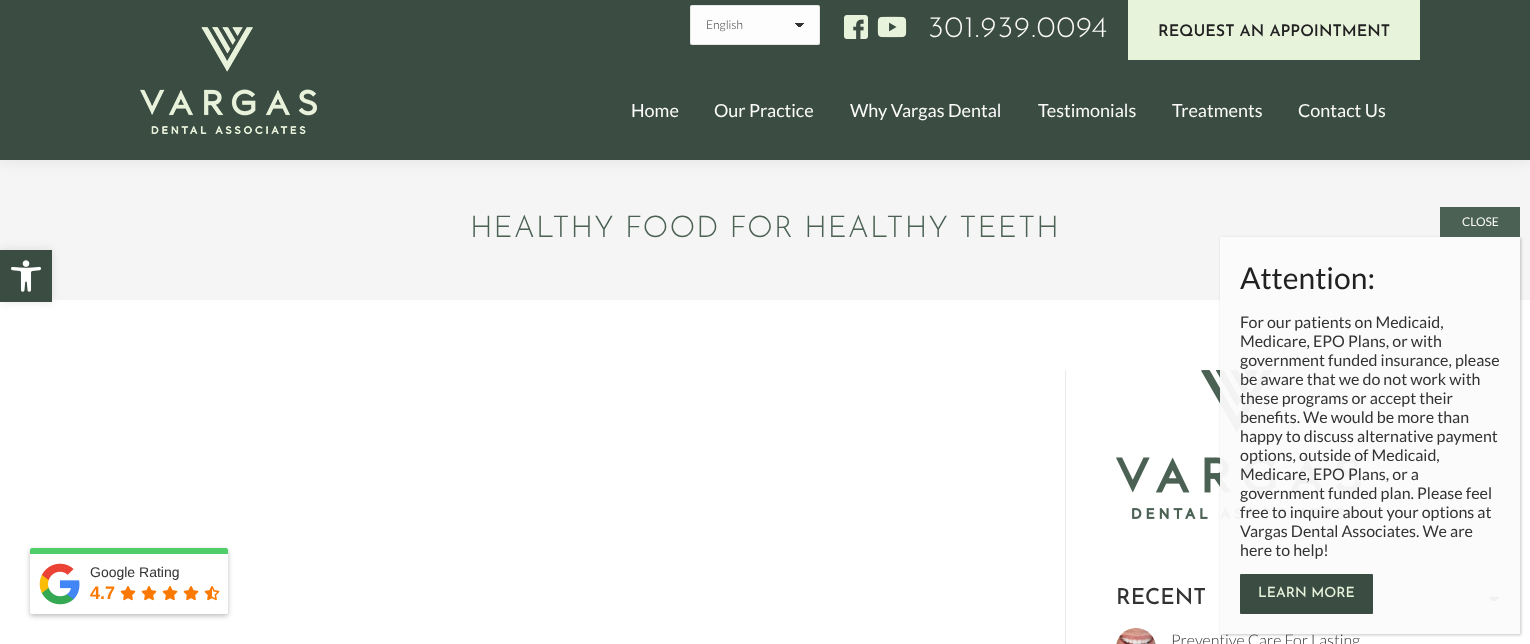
<svg xmlns="http://www.w3.org/2000/svg" width="1530" height="644">
<defs>
<linearGradient id="g1" gradientUnits="userSpaceOnUse" x1="799" y1="23" x2="804" y2="28"><stop offset="0.5" stop-color="#333"/><stop offset="0.5" stop-color="#fdfdfd"/></linearGradient>
<linearGradient id="g2" gradientUnits="userSpaceOnUse" x1="794" y1="28" x2="799" y2="23"><stop offset="0.5" stop-color="#fdfdfd"/><stop offset="0.5" stop-color="#333"/></linearGradient>
<linearGradient id="g3" gradientUnits="userSpaceOnUse" x1="1494" y1="597" x2="1499" y2="602"><stop offset="0.5" stop-color="#333"/><stop offset="0.5" stop-color="#fdfdfd"/></linearGradient>
<linearGradient id="g4" gradientUnits="userSpaceOnUse" x1="1489" y1="602" x2="1494" y2="597"><stop offset="0.5" stop-color="#fdfdfd"/><stop offset="0.5" stop-color="#333"/></linearGradient>
<clipPath id="clip1"><path d="M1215 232h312v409h-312zm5 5h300v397h-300z" clip-rule="evenodd"/></clipPath>
</defs>
<rect width="100%" height="100%" fill="#fff"/>
<rect y="160" width="1530" height="140" fill="#f5f5f5"/>
<rect x="-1" y="-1" width="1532" height="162" fill="#00000012" filter="blur(7.5px)"/>
<rect width="1530" height="160" fill="#3b4c42"/>
<rect x="690" y="5" width="130" height="40" rx="2" fill="#fdfdfd"/>
<rect x="799" y="23" width="5" height="4" fill="url(#g1)"/>
<rect x="794" y="23" width="5" height="4" fill="url(#g2)"/>
<rect x="690.5" y="5.5" width="129" height="39" rx="1.5" fill="none" stroke="#3333331c"/>
<text x="706" y="29" style="font-family:Lato;font-size:12px;font-weight:300;fill:#333">English</text>
<image x="844" y="15" width="24" height="24" href="media/1.png"/>
<image x="877" y="16" width="30" height="22" href="media/2.png"/>
<text x="928" y="37" style="font-family:Josefin Sans;font-size:30px;font-weight:300;letter-spacing:1px;fill:#fbfbfb">301.939.0094</text>
<rect x="1128" width="292" height="60" fill="#e8f3dc"/>
<text x="1158" y="36" style="font-family:Josefin Sans;font-size:16px;font-weight:600;fill:#222">REQUEST AN APPOINTMENT</text>
<image x="140" y="27" width="177" height="107" href="media/3.png"/>
<text x="631" y="117" style="font-family:Lato;font-size:18px;fill:#fbfbfb">Home</text>
<text x="714" y="117" style="font-family:Lato;font-size:18px;fill:#fbfbfb">Our Practice</text>
<text x="850" y="117" style="font-family:Lato;font-size:18px;fill:#fbfbfb">Why Vargas Dental</text>
<text x="1038" y="117" style="font-family:Lato;font-size:18px;fill:#fbfbfb">Testimonials</text>
<text x="1172" y="117" style="font-family:Lato;font-size:18px;fill:#fbfbfb">Treatments</text>
<text x="1298" y="117" style="font-family:Lato;font-size:18px;fill:#fbfbfb">Contact Us</text>
<text x="470" y="237" style="font-family:Josefin Sans;font-size:30px;font-weight:300;letter-spacing:1px;fill:#4b6154">HEALTHY FOOD FOR HEALTHY TEETH</text>
<rect x="30" y="550" width="198" height="66" rx="2" fill="#00000042" filter="blur(2.5px)"/>
<path d="M32 548h194c1 0 2 1 2 2v4h-198v-4c0-1 1-2 2-2z" fill="#4fce6a"/>
<path d="M30 554h198v58c0 1-1 2-2 2h-194c-1 0-2-1-2-2z" fill="#fff"/>
<image x="39" y="563" width="41" height="42" href="media/4.png"/>
<text x="90" y="577" style="font-family:Liberation Sans;font-size:14px;fill:#333">Google Rating</text>
<text x="90" y="599" style="font-family:Liberation Sans;font-size:18px;font-weight:bold;fill:#fb7900">4.7</text>
<image x="120" y="586" width="16" height="15" href="media/5.png"/>
<image x="141" y="586" width="16" height="15" href="media/5.png"/>
<image x="162" y="586" width="16" height="15" href="media/5.png"/>
<image x="183" y="586" width="16" height="15" href="media/5.png"/>
<image x="204" y="586" width="16" height="15" href="media/6.png"/>
<rect x="1065" y="370" width="1" height="274" fill="#ebebeb"/>
<image x="1116" y="370" width="245" height="149" href="media/7.png"/>
<text x="1116" y="604" style="font-family:Josefin Sans;font-size:22px;font-weight:500;fill:#333">RECENT</text>
<image x="1116" y="628" width="40" height="16" href="media/8.png"/>
<text x="1171" y="646" style="font-family:Lato;font-size:16px;font-weight:300;fill:#333">Preventive Care For Lasting</text>
<rect y="250" width="52" height="52" fill="#0000001a" filter="blur(5px)"/>
<rect y="250" width="52" height="52" fill="#3b4c42"/>
<image x="11" y="260" width="30" height="32" href="media/9.png"/>
<rect x="1494" y="597" width="5" height="4" fill="url(#g3)"/>
<rect x="1489" y="597" width="5" height="4" fill="url(#g4)"/>
<rect x="1358.5" y="579.5" width="156" height="39" rx="1.5" fill="none" stroke="#e7e7e7"/>
<g clip-path="url(#clip1)">
<rect x="1221" y="238" width="300" height="397" fill="#0202023b" filter="blur(1.5px)"/>
</g>
<rect x="1220" y="237" width="300" height="397" fill="#fbfbfbf2"/>
<rect x="1440" y="207" width="80" height="30" fill="#4b6154"/>
<text x="1462" y="226" style="font-family:Lato;font-size:12px;fill:#fbfbfb">CLOSE</text>
<text x="1240" y="289" style="font-family:Lato;font-size:30px;fill:#222">Attention:</text>
<text x="1240" y="328" style="font-family:Lato;font-size:16px;fill:#333">For our patients on Medicaid,</text>
<text x="1240" y="347" style="font-family:Lato;font-size:16px;fill:#333">Medicare, EPO Plans, or with</text>
<text x="1240" y="366" style="font-family:Lato;font-size:16px;fill:#333">government funded insurance, please</text>
<text x="1240" y="385" style="font-family:Lato;font-size:16px;fill:#333">be aware that we do not work with</text>
<text x="1240" y="404" style="font-family:Lato;font-size:16px;fill:#333">these programs or accept their</text>
<text x="1240" y="423" style="font-family:Lato;font-size:16px;fill:#333">benefits. We would be more than</text>
<text x="1240" y="442" style="font-family:Lato;font-size:16px;fill:#333">happy to discuss alternative payment</text>
<text x="1240" y="461" style="font-family:Lato;font-size:16px;fill:#333">options, outside of Medicaid,</text>
<text x="1240" y="480" style="font-family:Lato;font-size:16px;fill:#333">Medicare, EPO Plans, or a</text>
<text x="1240" y="499" style="font-family:Lato;font-size:16px;fill:#333">government funded plan. Please feel</text>
<text x="1240" y="518" style="font-family:Lato;font-size:16px;fill:#333">free to inquire about your options at</text>
<text x="1240" y="537" style="font-family:Lato;font-size:16px;fill:#333">Vargas Dental Associates. We are</text>
<text x="1240" y="556" style="font-family:Lato;font-size:16px;fill:#333">here to help!</text>
<rect x="1240" y="574" width="133" height="40" rx="1" fill="#3b4c42"/>
<text x="1258" y="597" style="font-family:Josefin Sans;font-size:14px;font-weight:500;fill:#e8f3dc">LEARN MORE</text>
</svg>
